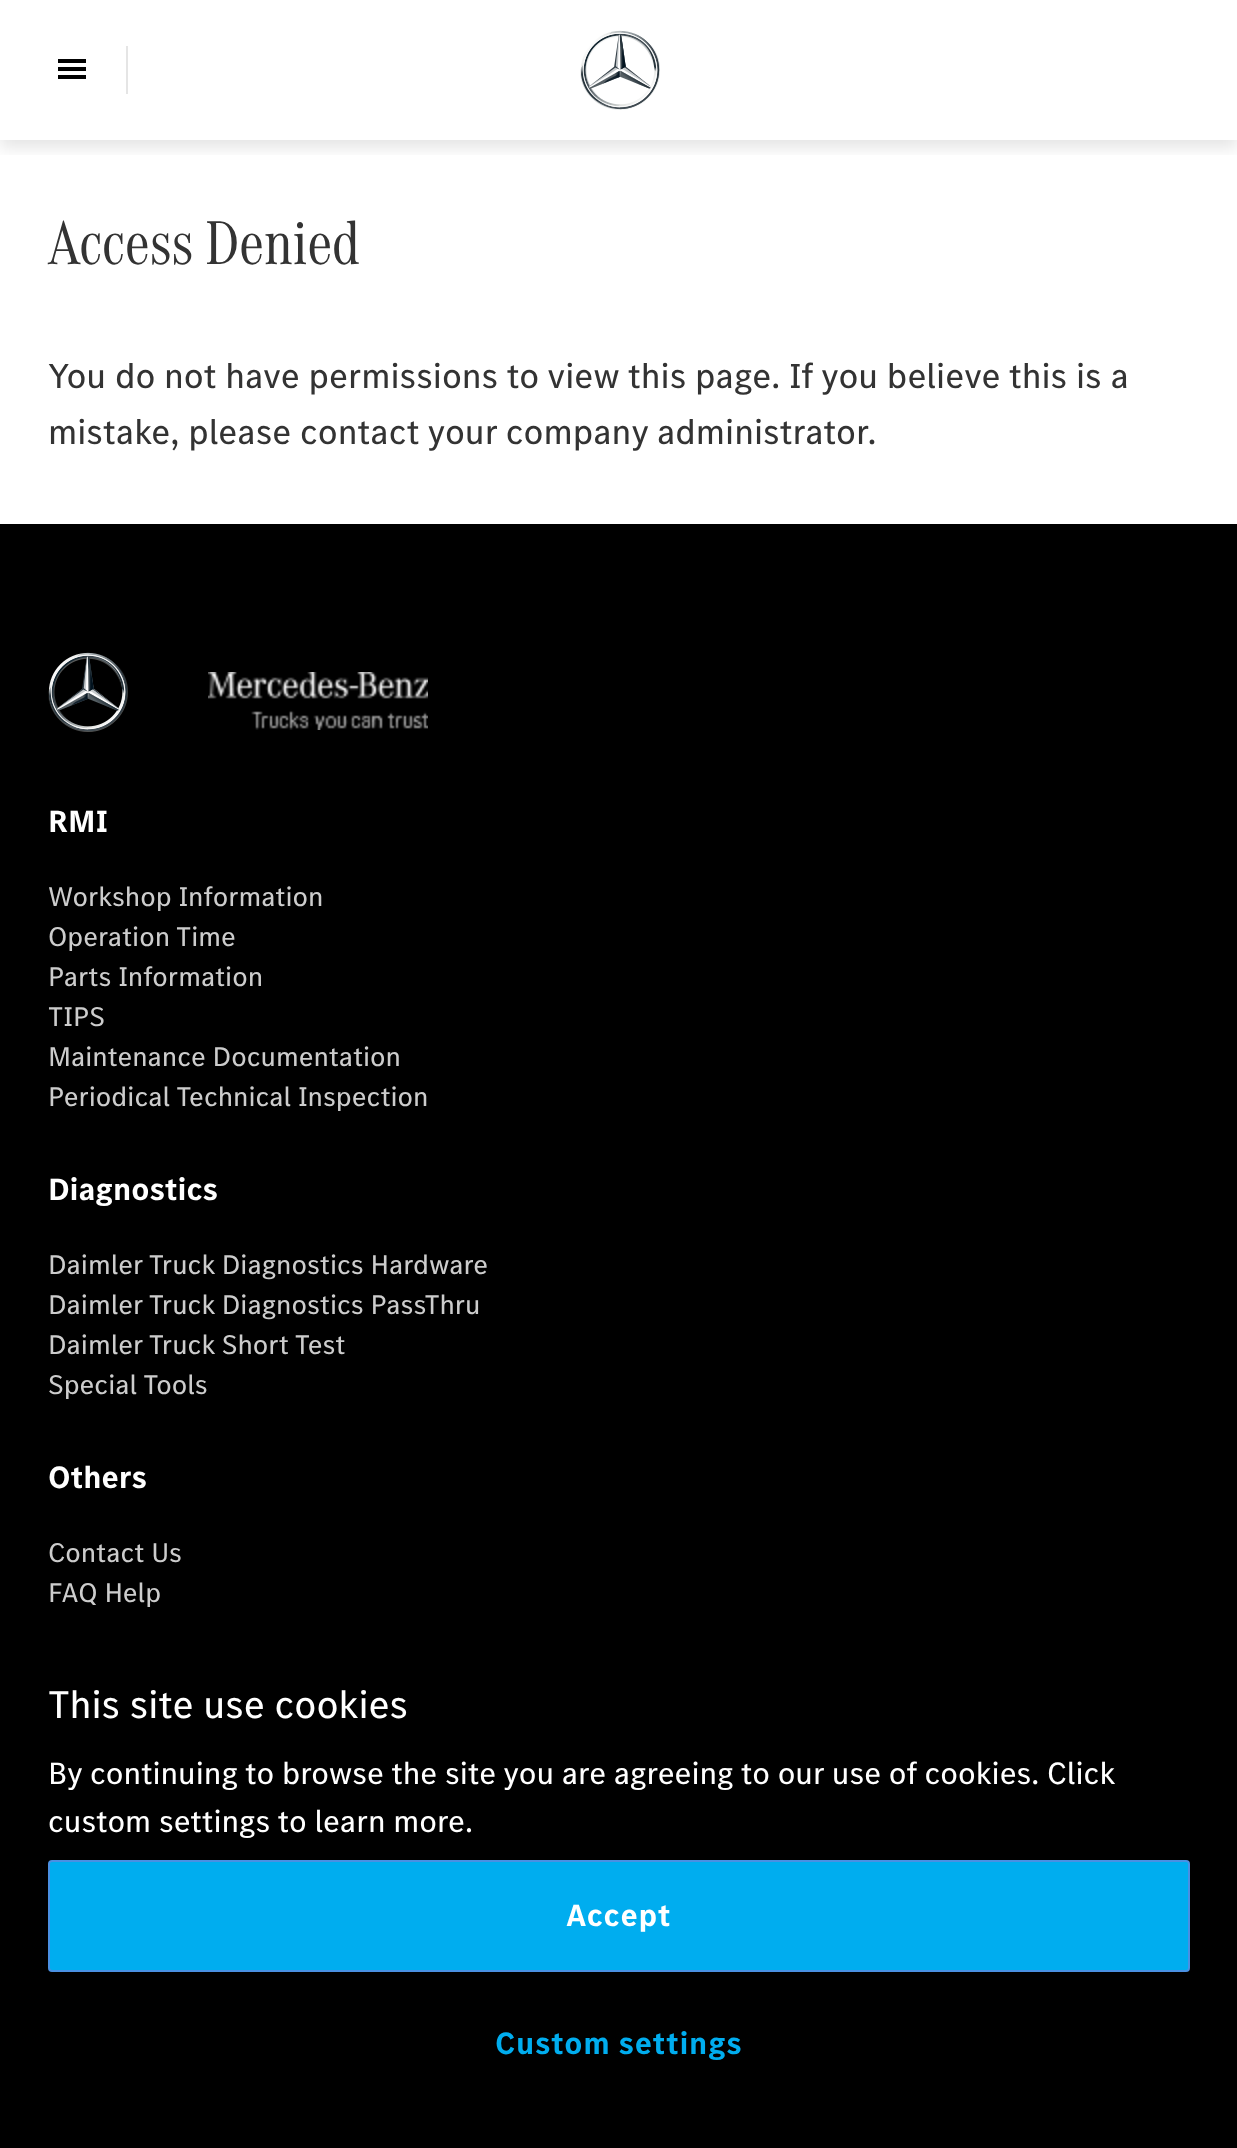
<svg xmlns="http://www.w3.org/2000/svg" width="1237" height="2148">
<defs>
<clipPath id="clip1"><rect x="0" y="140" width="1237" height="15"/></clipPath>
</defs>
<rect width="100%" height="100%" fill="#fff"/>
<g clip-path="url(#clip1)">
<rect y="8" width="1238" height="140" fill="#0000001a" filter="blur(8px)"/>
</g>
<image x="58" y="59" width="28" height="20" href="media/1.png"/>
<rect x="126" y="46" width="2" height="48" fill="#e5e5e5"/>
<image x="580" y="30" width="80" height="80" href="media/2.png"/>
<text x="48" y="264" style="font-family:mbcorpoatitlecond;font-size:64px;fill:#333">Access Denied</text>
<text x="48" y="388" style="font-family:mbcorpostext;font-size:36px;fill:#333">You do not have permissions to view this page. If you believe this is a</text>
<text x="48" y="444" style="font-family:mbcorpostext;font-size:36px;fill:#333">mistake, please contact your company administrator.</text>
<rect y="524" width="1237" height="1624" fill="#000"/>
<image x="48" y="652" width="80" height="80" href="media/3.png"/>
<image x="208" y="672" width="220" height="58" href="media/4.png"/>
<text x="48" y="832" style="font-family:mbcorpostext;font-size:32px;font-weight:bold;fill:#fff">RMI</text>
<text x="48" y="906" style="font-family:mbcorpostext;font-size:28px;fill:#ccc">Workshop Information</text>
<text x="48" y="946" style="font-family:mbcorpostext;font-size:28px;fill:#ccc">Operation Time</text>
<text x="48" y="986" style="font-family:mbcorpostext;font-size:28px;fill:#ccc">Parts Information</text>
<text x="48" y="1026" style="font-family:mbcorpostext;font-size:28px;fill:#ccc">TIPS</text>
<text x="48" y="1066" style="font-family:mbcorpostext;font-size:28px;fill:#ccc">Maintenance Documentation</text>
<text x="48" y="1106" style="font-family:mbcorpostext;font-size:28px;fill:#ccc">Periodical Technical Inspection</text>
<text x="48" y="1200" style="font-family:mbcorpostext;font-size:32px;font-weight:bold;fill:#fff">Diagnostics</text>
<text x="48" y="1274" style="font-family:mbcorpostext;font-size:28px;fill:#ccc">Daimler Truck Diagnostics Hardware</text>
<text x="48" y="1314" style="font-family:mbcorpostext;font-size:28px;fill:#ccc">Daimler Truck Diagnostics PassThru</text>
<text x="48" y="1354" style="font-family:mbcorpostext;font-size:28px;fill:#ccc">Daimler Truck Short Test</text>
<text x="48" y="1394" style="font-family:mbcorpostext;font-size:28px;fill:#ccc">Special Tools</text>
<text x="48" y="1488" style="font-family:mbcorpostext;font-size:32px;font-weight:bold;fill:#fff">Others</text>
<text x="48" y="1562" style="font-family:mbcorpostext;font-size:28px;fill:#ccc">Contact Us</text>
<text x="48" y="1602" style="font-family:mbcorpostext;font-size:28px;fill:#ccc">FAQ Help</text>
<text x="48" y="1718" style="font-family:mbcorpostext;font-size:40px;fill:#fff">This site use cookies</text>
<text x="48" y="1784" style="font-family:mbcorpostext;font-size:32px;fill:#fff">By continuing to browse the site you are agreeing to our use of cookies. Click</text>
<text x="48" y="1832" style="font-family:mbcorpostext;font-size:32px;fill:#fff">custom settings to learn more.</text>
<rect x="49" y="1861" width="1140" height="110" rx="3" fill="#00adef" stroke="#4a90e2" stroke-width="2"/>
<text x="566" y="1926" style="font-family:mbcorpostext;font-size:32px;font-weight:bold;letter-spacing:0.75px;fill:#fff">Accept</text>
<text x="495" y="2054" style="font-family:mbcorpostext;font-size:32px;font-weight:bold;letter-spacing:0.75px;fill:#00adef">Custom settings</text>
</svg>
